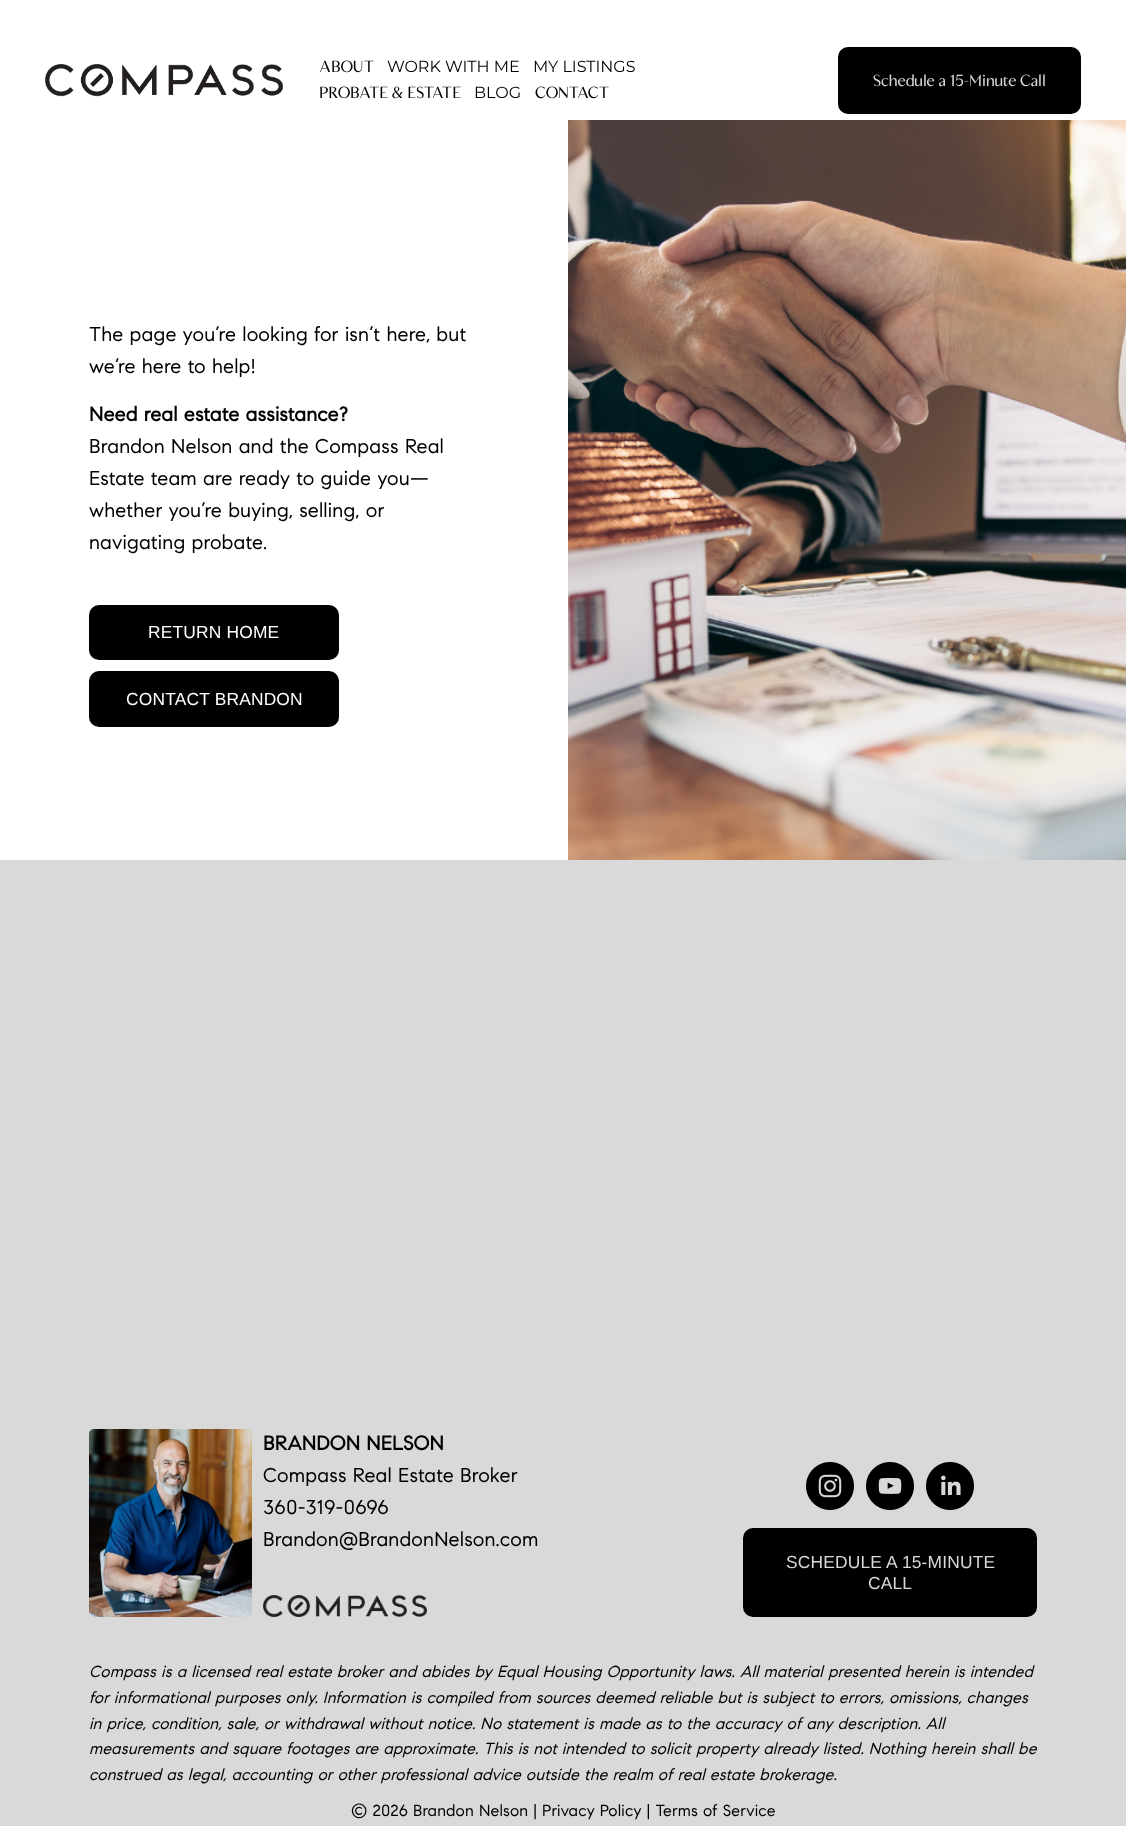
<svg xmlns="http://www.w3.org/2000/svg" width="1126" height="1826">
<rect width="100%" height="100%" fill="#d9d9d9"/>
<rect width="1126" height="860" fill="#fff"/>
<image x="45" y="64" width="238" height="33" href="media/1.png"/>
<text x="319" y="72" style="font-family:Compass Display;font-size:16px;fill:#000">ABOUT</text>
<text x="387" y="72" style="font-family:Montserrat;font-size:16px;fill:#000">WORK WITH ME</text>
<text x="533" y="72" style="font-family:Montserrat;font-size:16px;fill:#000">MY LISTINGS</text>
<text x="319" y="98" style="font-family:Compass Display;font-size:16px;fill:#000">PROBATE &amp; ESTATE</text>
<text x="474" y="98" style="font-family:Montserrat;font-size:16px;fill:#000">BLOG</text>
<text x="535" y="98" style="font-family:Compass Display;font-size:16px;fill:#000">CONTACT</text>
<rect x="838" y="47" width="243" height="67" rx="10" fill="#000"/>
<text x="873" y="86" style="font-family:Compass Display;font-size:16px;fill:#d9d9d9">Schedule a 15-Minute Call</text>
<text x="89" y="341" style="font-family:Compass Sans;font-size:20px;letter-spacing:0.17px;fill:#000">The page you’re looking for isn’t here, but</text>
<text x="89" y="373" style="font-family:Compass Sans;font-size:20px;letter-spacing:0.17px;fill:#000">we’re here to help!</text>
<text x="89" y="421" style="font-family:Compass Sans;font-size:20px;font-weight:bold;letter-spacing:0.17px;fill:#000">Need real estate assistance?</text>
<text x="89" y="453" style="font-family:Compass Sans;font-size:20px;letter-spacing:0.17px;fill:#000">Brandon Nelson and the Compass Real</text>
<text x="89" y="485" style="font-family:Compass Sans;font-size:20px;letter-spacing:0.17px;fill:#000">Estate team are ready to guide you—</text>
<text x="89" y="517" style="font-family:Compass Sans;font-size:20px;letter-spacing:0.17px;fill:#000">whether you’re buying, selling, or</text>
<text x="89" y="549" style="font-family:Compass Sans;font-size:20px;letter-spacing:0.17px;fill:#000">navigating probate.</text>
<image x="568" y="120" width="558" height="740" href="media/2.png"/>
<rect x="89" y="605" width="250" height="55" rx="10" fill="#000"/>
<text x="148" y="638" style="font-family:Liberation Sans;font-size:17.4px;letter-spacing:0.17px;fill:#fff">RETURN HOME</text>
<rect x="89" y="671" width="250" height="56" rx="10" fill="#000"/>
<text x="126" y="705" style="font-family:Liberation Sans;font-size:17.4px;letter-spacing:0.17px;fill:#fff">CONTACT BRANDON</text>
<image x="89" y="1429" width="163" height="188" href="media/3.png"/>
<text x="263" y="1450" style="font-family:Compass Sans;font-size:20px;font-weight:bold;letter-spacing:0.17px;fill:#000">BRANDON NELSON</text>
<text x="263" y="1482" style="font-family:Compass Sans;font-size:20px;letter-spacing:0.17px;fill:#000">Compass Real Estate Broker</text>
<text x="263" y="1514" style="font-family:Compass Sans;font-size:20px;letter-spacing:0.17px;fill:#000">360-319-0696</text>
<text x="263" y="1546" style="font-family:Compass Sans;font-size:20px;letter-spacing:0.17px;fill:#000">Brandon@BrandonNelson.com</text>
<image x="806" y="1462" width="48" height="48" href="media/4.png"/>
<image x="866" y="1462" width="48" height="48" href="media/5.png"/>
<image x="926" y="1462" width="48" height="48" href="media/6.png"/>
<rect x="743" y="1528" width="294" height="89" rx="10" fill="#000"/>
<text x="786" y="1568" style="font-family:Liberation Sans;font-size:17.4px;letter-spacing:0.17px;fill:#d9d9d9">SCHEDULE A 15-MINUTE</text>
<text x="868" y="1589" style="font-family:Liberation Sans;font-size:17.4px;letter-spacing:0.17px;fill:#d9d9d9">CALL</text>
<image x="263" y="1595" width="164" height="22" href="media/7.png"/>
<text x="89" y="1677" style="font-family:Compass Sans;font-size:16px;font-style:italic;letter-spacing:0.17px;fill:#000">Compass is a licensed real estate broker and abides by Equal Housing Opportunity laws. All material presented herein is intended</text>
<text x="89" y="1703" style="font-family:Compass Sans;font-size:16px;font-style:italic;letter-spacing:0.17px;fill:#000">for informational purposes only. Information is compiled from sources deemed reliable but is subject to errors, omissions, changes</text>
<text x="89" y="1729" style="font-family:Compass Sans;font-size:16px;font-style:italic;letter-spacing:0.17px;fill:#000">in price, condition, sale, or withdrawal without notice. No statement is made as to the accuracy of any description. All</text>
<text x="89" y="1754" style="font-family:Compass Sans;font-size:16px;font-style:italic;letter-spacing:0.17px;fill:#000">measurements and square footages are approximate. This is not intended to solicit property already listed. Nothing herein shall be</text>
<text x="89" y="1780" style="font-family:Compass Sans;font-size:16px;font-style:italic;letter-spacing:0.17px;fill:#000">construed as legal, accounting or other professional advice outside the realm of real estate brokerage.</text>
<text x="351" y="1816" style="font-family:Compass Sans;font-size:16px;letter-spacing:0.17px;fill:#000">© 2026 Brandon Nelson | Privacy Policy | Terms of Service</text>
</svg>
